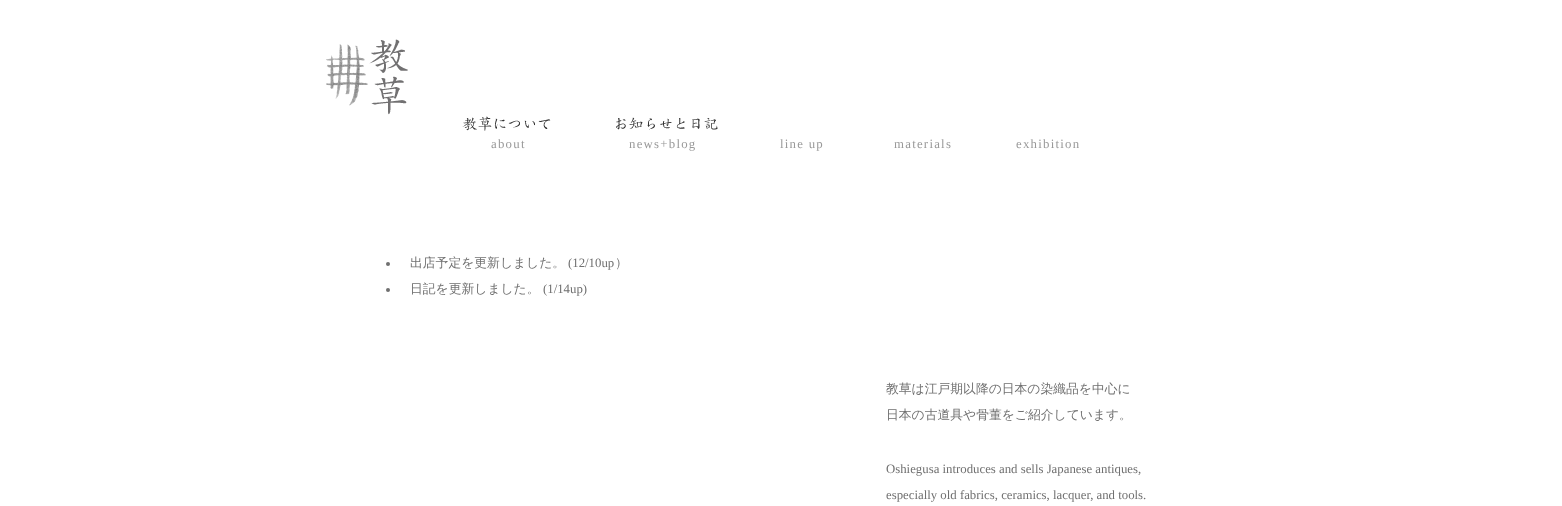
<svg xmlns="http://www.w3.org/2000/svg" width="1562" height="506">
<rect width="100%" height="100%" fill="#fff"/>
<image x="326" y="39" width="82" height="76" href="media/1.png"/>
<image x="462" y="116" width="89" height="15" href="media/2.png"/>
<image x="616" y="117" width="102" height="13" href="media/3.png"/>
<text x="491" y="148" style="font-family:Liberation Serif;font-size:12.8px;letter-spacing:1.25px;fill:#999">about</text>
<text x="629" y="148" style="font-family:Liberation Serif;font-size:12.8px;letter-spacing:1.25px;fill:#999">news+blog</text>
<text x="780" y="148" style="font-family:Liberation Serif;font-size:12.8px;letter-spacing:1.25px;fill:#999">line up</text>
<text x="894" y="148" style="font-family:Liberation Serif;font-size:12.8px;letter-spacing:1.25px;fill:#999">materials</text>
<text x="1016" y="148" style="font-family:Liberation Serif;font-size:12.8px;letter-spacing:1.25px;fill:#999">exhibition</text>
<circle cx="388" cy="264" r="2" fill="#707070"/>
<text x="410" y="267" style="font-family:WenQuanYi Zen Hei;font-size:12.8px;font-weight:500;fill:#707070">出店予定を更新しました。</text>
<text x="568" y="267" style="font-family:Liberation Serif;font-size:12.8px;fill:#707070">(12/10up</text>
<text x="615" y="267" style="font-family:WenQuanYi Zen Hei;font-size:12.8px;font-weight:500;fill:#707070">）</text>
<circle cx="388" cy="290" r="2" fill="#707070"/>
<text x="410" y="293" style="font-family:WenQuanYi Zen Hei;font-size:12.8px;font-weight:500;fill:#707070">日記を更新しました。</text>
<text x="543" y="293" style="font-family:Liberation Serif;font-size:12.8px;fill:#707070">(1/14up)</text>
<text x="886" y="393" style="font-family:WenQuanYi Zen Hei;font-size:12.8px;font-weight:500;fill:#707070">教草は江戸期以降の日本の染織品を中心に</text>
<text x="886" y="419" style="font-family:WenQuanYi Zen Hei;font-size:12.8px;font-weight:500;fill:#707070">日本の古道具や骨董をご紹介しています。</text>
<text x="886" y="473" style="font-family:Liberation Serif;font-size:12.8px;fill:#707070">Oshiegusa introduces and sells Japanese antiques,</text>
<text x="886" y="499" style="font-family:Liberation Serif;font-size:12.8px;fill:#707070">especially old fabrics, ceramics, lacquer, and tools.</text>
</svg>
